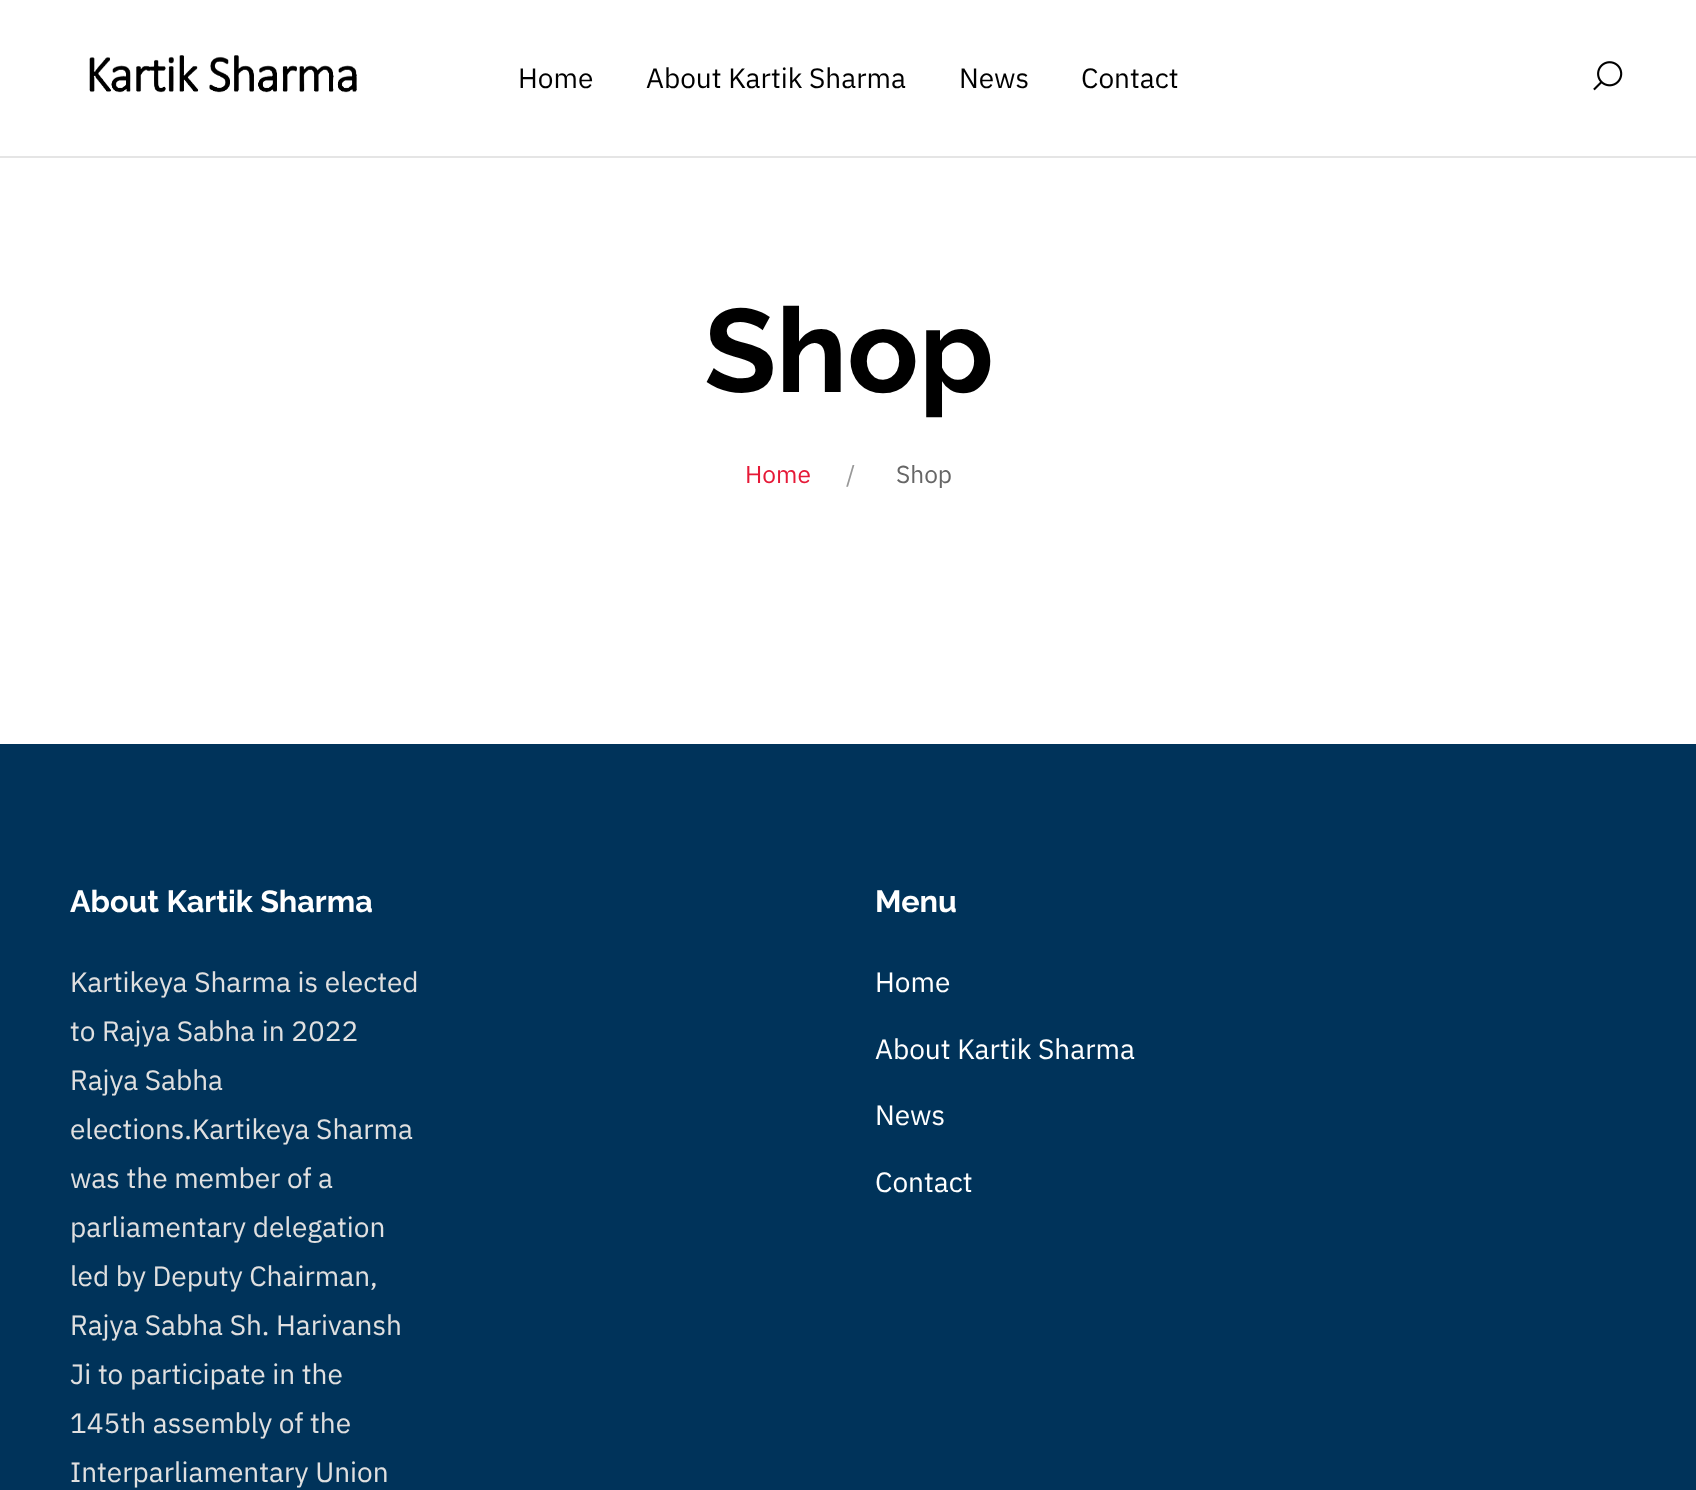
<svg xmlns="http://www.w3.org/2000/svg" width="1696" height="1490">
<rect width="100%" height="100%" fill="#fff"/>
<rect y="156" width="1696" height="2" fill="#e5e5e5"/>
<image x="89" y="55" width="268" height="38" href="media/1.png"/>
<text x="518" y="88" style="font-family:IBM Plex Sans;font-size:28px;fill:#000">Home</text>
<text x="646" y="88" style="font-family:IBM Plex Sans;font-size:28px;fill:#000">About Kartik Sharma</text>
<text x="959" y="88" style="font-family:IBM Plex Sans;font-size:28px;fill:#000">News</text>
<text x="1081" y="88" style="font-family:IBM Plex Sans;font-size:28px;fill:#000">Contact</text>
<image x="1593" y="61" width="30" height="30" href="media/2.png"/>
<text x="704" y="392" style="font-family:Raleway;font-size:118px;font-weight:100;fill:#000">Shop</text>
<text x="745" y="483" style="font-family:IBM Plex Sans;font-size:24.5px;fill:#e61937">Home</text>
<text x="846" y="483" style="font-family:IBM Plex Sans;font-size:24.5px;fill:#999">/</text>
<text x="896" y="483" style="font-family:IBM Plex Sans;font-size:24.5px;fill:#666">Shop</text>
<rect y="744" width="1696" height="746" fill="#00335a"/>
<text x="70" y="912" style="font-family:Raleway;font-size:30.6px;font-weight:100;fill:#fff">About Kartik Sharma</text>
<text x="70" y="992" style="font-family:IBM Plex Sans;font-size:28px;fill:#e0e0e0">Kartikeya Sharma is elected</text>
<text x="70" y="1041" style="font-family:IBM Plex Sans;font-size:28px;fill:#e0e0e0">to Rajya Sabha in 2022</text>
<text x="70" y="1090" style="font-family:IBM Plex Sans;font-size:28px;fill:#e0e0e0">Rajya Sabha</text>
<text x="70" y="1139" style="font-family:IBM Plex Sans;font-size:28px;fill:#e0e0e0">elections.Kartikeya Sharma</text>
<text x="70" y="1188" style="font-family:IBM Plex Sans;font-size:28px;fill:#e0e0e0">was the member of a</text>
<text x="70" y="1237" style="font-family:IBM Plex Sans;font-size:28px;fill:#e0e0e0">parliamentary delegation</text>
<text x="70" y="1286" style="font-family:IBM Plex Sans;font-size:28px;fill:#e0e0e0">led by Deputy Chairman,</text>
<text x="70" y="1335" style="font-family:IBM Plex Sans;font-size:28px;fill:#e0e0e0">Rajya Sabha Sh. Harivansh</text>
<text x="70" y="1384" style="font-family:IBM Plex Sans;font-size:28px;fill:#e0e0e0">Ji to participate in the</text>
<text x="70" y="1433" style="font-family:IBM Plex Sans;font-size:28px;fill:#e0e0e0">145th assembly of the</text>
<text x="70" y="1482" style="font-family:IBM Plex Sans;font-size:28px;fill:#e0e0e0">Interparliamentary Union</text>
<text x="875" y="912" style="font-family:Raleway;font-size:30.6px;font-weight:100;fill:#fff">Menu</text>
<text x="875" y="992" style="font-family:IBM Plex Sans;font-size:28px;fill:#fff">Home</text>
<text x="875" y="1059" style="font-family:IBM Plex Sans;font-size:28px;fill:#fff">About Kartik Sharma</text>
<text x="875" y="1125" style="font-family:IBM Plex Sans;font-size:28px;fill:#fff">News</text>
<text x="875" y="1192" style="font-family:IBM Plex Sans;font-size:28px;fill:#fff">Contact</text>
</svg>
